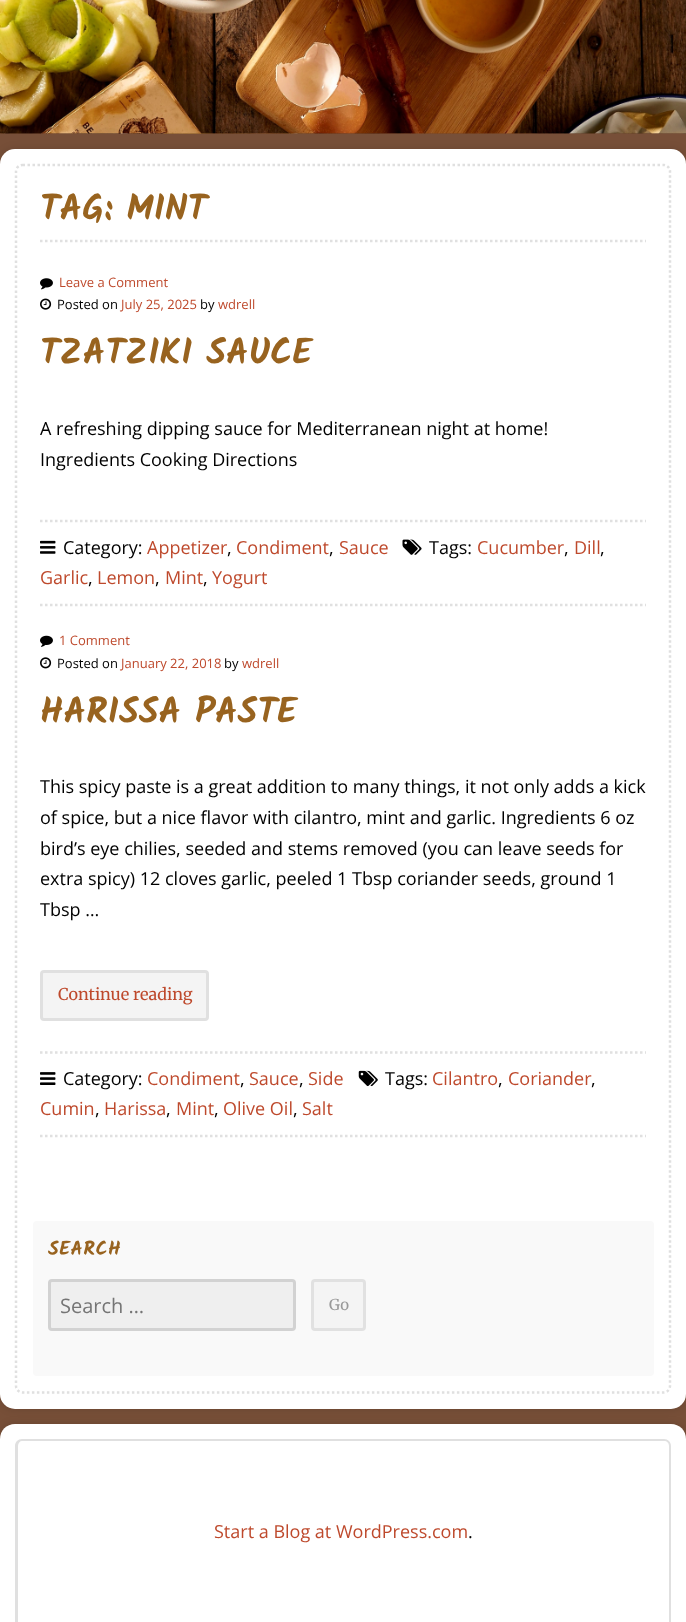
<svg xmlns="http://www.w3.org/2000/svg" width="686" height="1622">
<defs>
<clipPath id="clip1"><rect x="48" y="1236" width="591" height="95"/></clipPath>
</defs>
<rect width="100%" height="100%" fill="#774f38"/>
<image x="0" y="0" width="686" height="134" href="media/1.png"/>
<rect y="149" width="686" height="1260" rx="15" fill="#0000001f" filter="blur(4px)"/>
<rect y="149" width="686" height="1260" rx="15" fill="#fff"/>
<path d="M22.5 165h641.5c3 0 6 3 6 6v1215c0 3.5-3 6.5-6 6.5h-641.5c-3.5 0-6.5-3-6.5-6.5v-1215c0-3 3-6 6.5-6z" fill="none" stroke="#e0e0e0" stroke-width="2.5" stroke-dasharray="2.5 2.5"/>
<path d="M40 241h606" fill="none" stroke="#e0e0e0" stroke-width="2.5" stroke-dasharray="2.5 2.5"/>
<text x="40" y="220" style="font-family:Kalam;font-size:36px;font-weight:bold;fill:#98631f">TAG: MINT</text>
<image x="40" y="278" width="13" height="12" href="media/2.png"/>
<text x="59" y="287" style="font-family:Open Sans;font-size:13px;fill:#be492c">Leave a Comment</text>
<image x="40" y="298" width="12" height="12" href="media/3.png"/>
<text x="57" y="309" style="font-family:Open Sans;font-size:13px;fill:#000">Posted on</text>
<text x="121" y="309" style="font-family:Open Sans;font-size:13px;fill:#be492c">July 25, 2025</text>
<text x="200" y="309" style="font-family:Open Sans;font-size:13px;fill:#000">by</text>
<text x="218" y="309" style="font-family:Open Sans;font-size:13px;fill:#be492c">wdrell</text>
<text x="40" y="364" style="font-family:Kalam;font-size:36px;font-weight:bold;fill:#98631f">TZATZIKI SAUCE</text>
<text x="40" y="435" style="font-family:Open Sans;font-size:18px;fill:#000">A refreshing dipping sauce for Mediterranean night at home!</text>
<text x="40" y="466" style="font-family:Open Sans;font-size:18px;fill:#000">Ingredients Cooking Directions</text>
<path d="M40 521h606" fill="none" stroke="#e0e0e0" stroke-width="2.5" stroke-dasharray="2.5 2.5"/>
<path d="M40 605h606" fill="none" stroke="#e0e0e0" stroke-width="2.5" stroke-dasharray="2.5 2.5"/>
<image x="40" y="540" width="16" height="14" href="media/4.png"/>
<text x="63" y="554" style="font-family:Open Sans;font-size:18px;fill:#000">Category:</text>
<text x="147" y="554" style="font-family:Open Sans;font-size:18px;fill:#be492c">Appetizer</text>
<text x="227" y="554" style="font-family:Open Sans;font-size:18px;fill:#000">,</text>
<text x="236" y="554" style="font-family:Open Sans;font-size:18px;fill:#be492c">Condiment</text>
<text x="329" y="554" style="font-family:Open Sans;font-size:18px;fill:#000">,</text>
<text x="339" y="554" style="font-family:Open Sans;font-size:18px;fill:#be492c">Sauce</text>
<image x="402" y="539" width="20" height="16" href="media/5.png"/>
<text x="429" y="554" style="font-family:Open Sans;font-size:18px;fill:#000">Tags:</text>
<text x="477" y="554" style="font-family:Open Sans;font-size:18px;fill:#be492c">Cucumber</text>
<text x="564" y="554" style="font-family:Open Sans;font-size:18px;fill:#000">,</text>
<text x="574" y="554" style="font-family:Open Sans;font-size:18px;fill:#be492c">Dill</text>
<text x="600" y="554" style="font-family:Open Sans;font-size:18px;fill:#000">,</text>
<text x="40" y="584" style="font-family:Open Sans;font-size:18px;fill:#be492c">Garlic</text>
<text x="88" y="584" style="font-family:Open Sans;font-size:18px;fill:#000">,</text>
<text x="97" y="584" style="font-family:Open Sans;font-size:18px;fill:#be492c">Lemon</text>
<text x="155" y="584" style="font-family:Open Sans;font-size:18px;fill:#000">,</text>
<text x="165" y="584" style="font-family:Open Sans;font-size:18px;fill:#be492c">Mint</text>
<text x="203" y="584" style="font-family:Open Sans;font-size:18px;fill:#000">,</text>
<text x="212" y="584" style="font-family:Open Sans;font-size:18px;fill:#be492c">Yogurt</text>
<image x="40" y="635" width="13" height="12" href="media/6.png"/>
<text x="59" y="645" style="font-family:Open Sans;font-size:13px;fill:#be492c">1 Comment</text>
<image x="40" y="657" width="12" height="12" href="media/7.png"/>
<text x="57" y="668" style="font-family:Open Sans;font-size:13px;fill:#000">Posted on</text>
<text x="121" y="668" style="font-family:Open Sans;font-size:13px;fill:#be492c">January 22, 2018</text>
<text x="224" y="668" style="font-family:Open Sans;font-size:13px;fill:#000">by</text>
<text x="242" y="668" style="font-family:Open Sans;font-size:13px;fill:#be492c">wdrell</text>
<text x="40" y="723" style="font-family:Kalam;font-size:36px;font-weight:bold;fill:#98631f">HARISSA PASTE</text>
<text x="40" y="793" style="font-family:Open Sans;font-size:18px;fill:#000">This spicy paste is a great addition to many things, it not only adds a kick</text>
<text x="40" y="824" style="font-family:Open Sans;font-size:18px;fill:#000">of spice, but a nice flavor with cilantro, mint and garlic. Ingredients 6 oz</text>
<text x="40" y="855" style="font-family:Open Sans;font-size:18px;fill:#000">bird’s eye chilies, seeded and stems removed (you can leave seeds for</text>
<text x="40" y="885" style="font-family:Open Sans;font-size:18px;fill:#000">extra spicy) 12 cloves garlic, peeled 1 Tbsp coriander seeds, ground 1</text>
<text x="40" y="916" style="font-family:Open Sans;font-size:18px;fill:#000">Tbsp …</text>
<rect x="40" y="970" width="169" height="51" rx="4" fill="#f4f4f4"/>
<rect x="41.5" y="971.5" width="166" height="48" rx="2.5" fill="none" stroke="#00000014" stroke-width="3"/>
<text x="58" y="1000" style="font-family:Merriweather;font-size:16.25px;fill:#be492c">Continue reading</text>
<path d="M40 1052.5h606" fill="none" stroke="#e0e0e0" stroke-width="2.5" stroke-dasharray="2.5 2.5"/>
<path d="M40 1136h606" fill="none" stroke="#e0e0e0" stroke-width="2.5" stroke-dasharray="2.5 2.5"/>
<image x="40" y="1072" width="16" height="13" href="media/8.png"/>
<text x="63" y="1085" style="font-family:Open Sans;font-size:18px;fill:#000">Category:</text>
<text x="147" y="1085" style="font-family:Open Sans;font-size:18px;fill:#be492c">Condiment</text>
<text x="240" y="1085" style="font-family:Open Sans;font-size:18px;fill:#000">,</text>
<text x="249" y="1085" style="font-family:Open Sans;font-size:18px;fill:#be492c">Sauce</text>
<text x="299" y="1085" style="font-family:Open Sans;font-size:18px;fill:#000">,</text>
<text x="308" y="1085" style="font-family:Open Sans;font-size:18px;fill:#be492c">Side</text>
<image x="358" y="1070" width="20" height="17" href="media/9.png"/>
<text x="385" y="1085" style="font-family:Open Sans;font-size:18px;fill:#000">Tags:</text>
<text x="432" y="1085" style="font-family:Open Sans;font-size:18px;fill:#be492c">Cilantro</text>
<text x="498" y="1085" style="font-family:Open Sans;font-size:18px;fill:#000">,</text>
<text x="508" y="1085" style="font-family:Open Sans;font-size:18px;fill:#be492c">Coriander</text>
<text x="591" y="1085" style="font-family:Open Sans;font-size:18px;fill:#000">,</text>
<text x="40" y="1115" style="font-family:Open Sans;font-size:18px;fill:#be492c">Cumin</text>
<text x="95" y="1115" style="font-family:Open Sans;font-size:18px;fill:#000">,</text>
<text x="104" y="1115" style="font-family:Open Sans;font-size:18px;fill:#be492c">Harissa</text>
<text x="166" y="1115" style="font-family:Open Sans;font-size:18px;fill:#000">,</text>
<text x="176" y="1115" style="font-family:Open Sans;font-size:18px;fill:#be492c">Mint</text>
<text x="214" y="1115" style="font-family:Open Sans;font-size:18px;fill:#000">,</text>
<text x="223" y="1115" style="font-family:Open Sans;font-size:18px;fill:#be492c">Olive Oil</text>
<text x="293" y="1115" style="font-family:Open Sans;font-size:18px;fill:#000">,</text>
<text x="302" y="1115" style="font-family:Open Sans;font-size:18px;fill:#be492c">Salt</text>
<rect x="33" y="1221" width="621" height="155" rx="4" fill="#f9f9f9"/>
<g clip-path="url(#clip1)">
<text x="48" y="1255" style="font-family:Kalam;font-size:19.5px;font-weight:bold;letter-spacing:0.5px;fill:#98631f">SEARCH</text>
</g>
<rect x="48" y="1279" width="248" height="52" rx="4" fill="#efefef"/>
<rect x="49.5" y="1280.5" width="245" height="49" rx="2.5" fill="none" stroke="#0000001f" stroke-width="3"/>
<text x="60" y="1313" style="font-family:Open Sans;font-size:20px;fill:#757575">Search …</text>
<rect x="312.5" y="1280.5" width="52" height="49" rx="2.5" fill="#f4f4f4" stroke="#e1e1e1" stroke-width="3"/>
<text x="329" y="1310" style="font-family:Merriweather;font-size:15px;fill:#999">Go</text>
<rect y="1424" width="686" height="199" rx="15" fill="#0000001f" filter="blur(4px)"/>
<path d="M15 1424h656c8.5 0 15 6.5 15 15v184h-686v-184c0-8.5 6.5-15 15-15z" fill="#fff"/>
<path d="M22 1439h642c4 0 7 3 7 7v176h-656v-176c0-4 3-7 7-7zm0 2h642c3 0 5 2 5 5v176h-651v-176c0-3 2-5 4-5z" fill="#e0e0e0" fill-rule="evenodd"/>
<text x="214" y="1538" style="font-family:Open Sans;font-size:18px;fill:#be492c">Start a Blog at WordPress.com</text>
<text x="468" y="1538" style="font-family:Open Sans;font-size:18px;fill:#000">.</text>
</svg>
